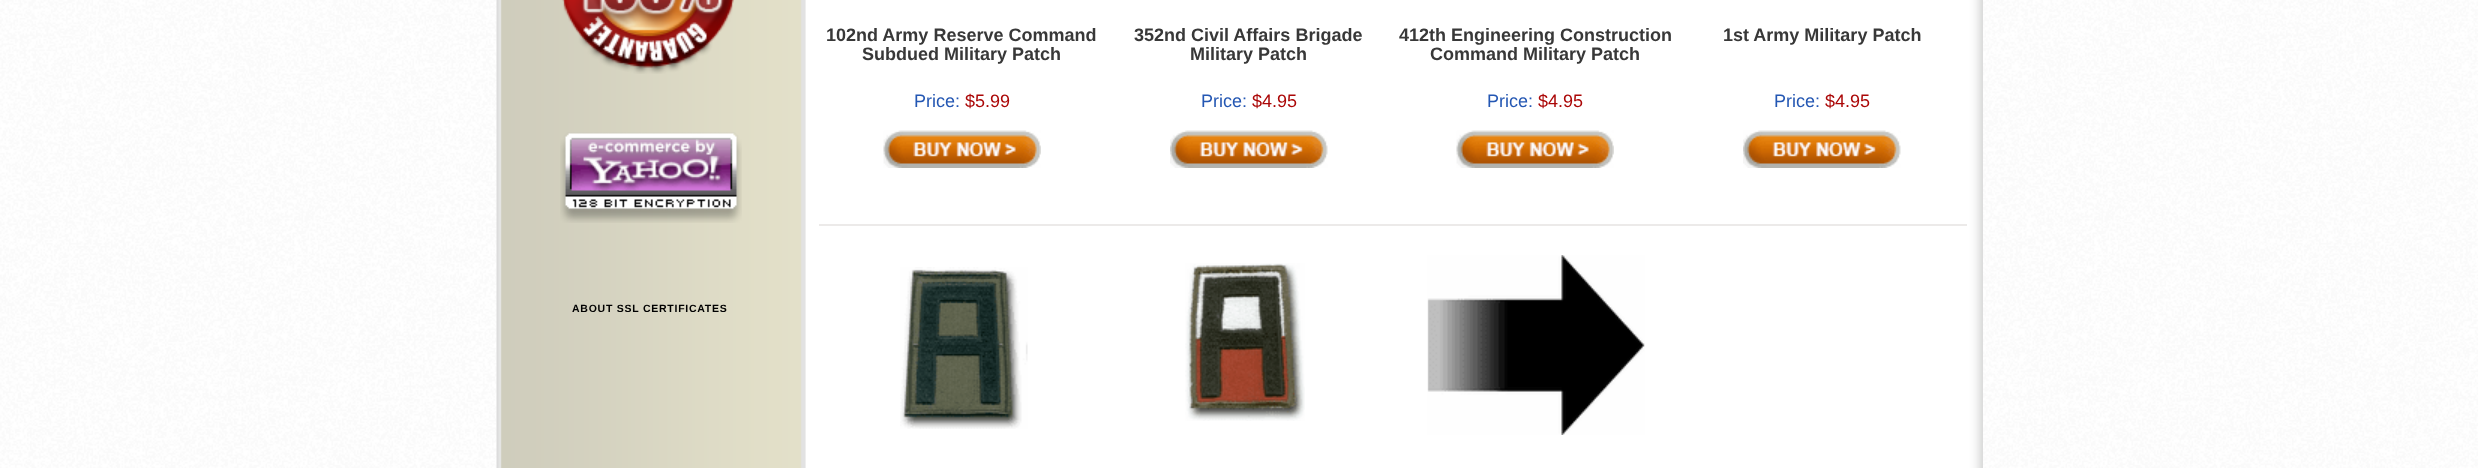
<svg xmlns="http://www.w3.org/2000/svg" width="2478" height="468">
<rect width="100%" height="100%" fill="#fff"/>
<image x="0" y="0" width="2478" height="468" href="media/1.png"/>
<image x="496" y="0" width="1487" height="468" href="media/2.png"/>
<rect x="819" y="224" width="1148" height="2" fill="#eceae9"/>
<text x="826" y="41" style="font-family:Liberation Sans;font-size:18px;font-weight:bold;fill:#383838">102nd Army Reserve Command</text>
<text x="862" y="60" style="font-family:Liberation Sans;font-size:18px;font-weight:bold;fill:#383838">Subdued Military Patch</text>
<text x="914" y="107" style="font-family:Liberation Sans;font-size:18px;fill:#2457b3">Price:</text>
<text x="965" y="107" style="font-family:Liberation Sans;font-size:18px;fill:#ab0707">$5.99</text>
<image x="883" y="130" width="158" height="38" href="media/3.png"/>
<text x="1134" y="41" style="font-family:Liberation Sans;font-size:18px;font-weight:bold;fill:#383838">352nd Civil Affairs Brigade</text>
<text x="1190" y="60" style="font-family:Liberation Sans;font-size:18px;font-weight:bold;fill:#383838">Military Patch</text>
<text x="1201" y="107" style="font-family:Liberation Sans;font-size:18px;fill:#2457b3">Price:</text>
<text x="1252" y="107" style="font-family:Liberation Sans;font-size:18px;fill:#ab0707">$4.95</text>
<image x="1170" y="130" width="158" height="38" href="media/4.png"/>
<text x="1399" y="41" style="font-family:Liberation Sans;font-size:18px;font-weight:bold;fill:#383838">412th Engineering Construction</text>
<text x="1430" y="60" style="font-family:Liberation Sans;font-size:18px;font-weight:bold;fill:#383838">Command Military Patch</text>
<text x="1487" y="107" style="font-family:Liberation Sans;font-size:18px;fill:#2457b3">Price:</text>
<text x="1538" y="107" style="font-family:Liberation Sans;font-size:18px;fill:#ab0707">$4.95</text>
<image x="1456" y="130" width="158" height="38" href="media/5.png"/>
<text x="1723" y="41" style="font-family:Liberation Sans;font-size:18px;font-weight:bold;fill:#383838">1st Army Military Patch</text>
<text x="1774" y="107" style="font-family:Liberation Sans;font-size:18px;fill:#2457b3">Price:</text>
<text x="1825" y="107" style="font-family:Liberation Sans;font-size:18px;fill:#ab0707">$4.95</text>
<image x="1743" y="130" width="158" height="38" href="media/6.png"/>
<image x="900" y="267" width="128" height="162" href="media/7.png"/>
<image x="1185" y="263" width="120" height="158" href="media/8.png"/>
<image x="1427" y="255" width="218" height="180" href="media/9.png"/>
<image x="562" y="0" width="172" height="74" href="media/10.png"/>
<image x="560" y="132" width="182" height="91" href="media/11.png"/>
<text x="572" y="312" style="font-family:Liberation Sans;font-size:10.5px;font-weight:bold;letter-spacing:0.75px;fill:#000">ABOUT SSL CERTIFICATES</text>
</svg>
